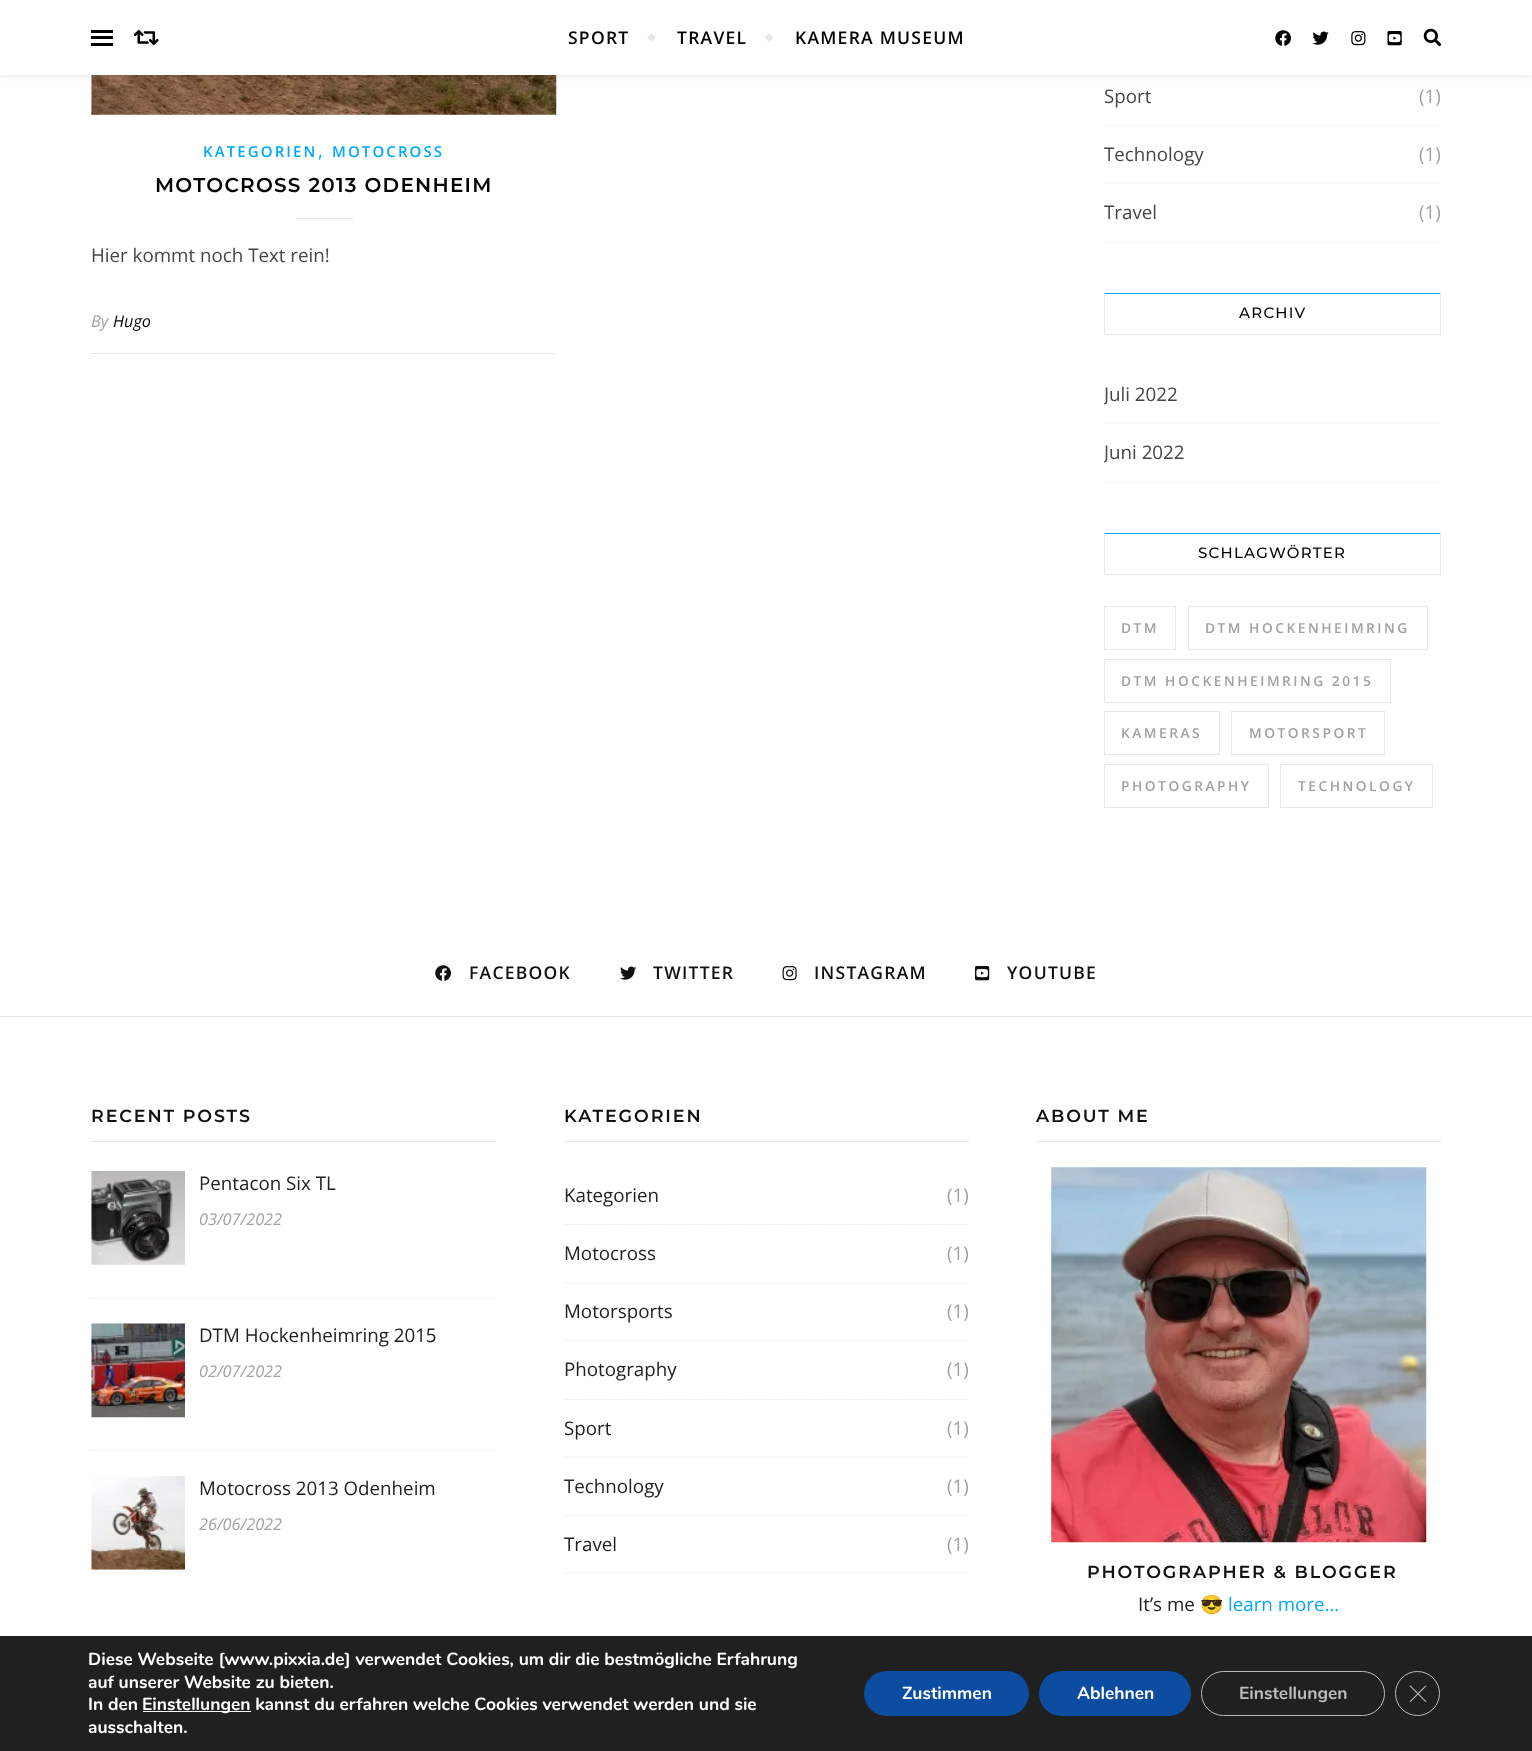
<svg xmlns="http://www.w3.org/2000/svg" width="1532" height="1751">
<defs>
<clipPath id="clip1"><rect x="1104" y="375" width="74" height="39"/></clipPath>
<clipPath id="clip2"><rect x="1104" y="433" width="80" height="40"/></clipPath>
</defs>
<rect width="100%" height="100%" fill="#fff"/>
<image x="91" y="75" width="466" height="40" href="media/7.png"/>
<rect y="1" width="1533" height="75" fill="#0000001a" filter="blur(3px)"/>
<rect width="1532" height="75" fill="#fff"/>
<rect x="91" y="30" width="22" height="3" fill="#000"/>
<rect x="91" y="36" width="22" height="3" fill="#000"/>
<rect x="91" y="43" width="22" height="3" fill="#000"/>
<image x="133" y="29" width="26" height="17" href="media/1.png"/>
<text x="568" y="44" style="font-family:Open Sans;font-size:17.5px;font-weight:600;letter-spacing:1.25px;fill:#030303">SPORT</text>
<path d="M647 37.5l4.5-4.5l4.5 4.5l-4.5 4.5z" fill="#e8e8e8"/>
<text x="677" y="44" style="font-family:Open Sans;font-size:17.5px;font-weight:600;letter-spacing:1.25px;fill:#030303">TRAVEL</text>
<path d="M764.5 37.5l4.5-4.5l4.5 4.5l-4.5 4.5z" fill="#e8e8e8"/>
<text x="795" y="44" style="font-family:Open Sans;font-size:17.5px;font-weight:600;letter-spacing:1.25px;fill:#030303">KAMERA MUSEUM</text>
<image x="1275" y="30" width="16" height="16" href="media/2.png"/>
<image x="1312" y="31" width="17" height="14" href="media/3.png"/>
<image x="1351" y="31" width="15" height="15" href="media/4.png"/>
<image x="1387" y="31" width="15" height="15" href="media/5.png"/>
<image x="1423" y="28" width="19" height="19" href="media/6.png"/>
<text x="203" y="157" style="font-family:Open Sans;font-size:15px;font-weight:600;letter-spacing:2.1px;fill:#00a9ff">KATEGORIEN</text>
<text x="318" y="157" style="font-family:Open Sans;font-size:18.75px;fill:#00a9ff">,</text>
<text x="332" y="157" style="font-family:Open Sans;font-size:15px;font-weight:600;letter-spacing:2.1px;fill:#00a9ff">MOTOCROSS</text>
<text x="155" y="192" style="font-family:Montserrat;font-size:20px;font-weight:600;letter-spacing:1.25px;fill:#030303">MOTOCROSS 2013 ODENHEIM</text>
<rect x="296" y="218" width="57" height="1" fill="#e8e8e8"/>
<text x="91" y="262" style="font-family:Open Sans;font-size:18.75px;fill:#464646">Hier kommt noch Text rein!</text>
<rect x="91" y="353" width="465" height="1" fill="#e8e8e8"/>
<text x="91" y="327" style="font-family:Open Sans;font-size:16.25px;font-style:italic;fill:#a1a1a1">By</text>
<text x="113" y="327" style="font-family:Open Sans;font-size:16.25px;font-style:italic;fill:#030303">Hugo</text>
<path d="M1104 125.5h337" fill="none" stroke="#e8e8e8" stroke-width="1.2" stroke-dasharray="1.25 1.25"/>
<text x="1104" y="103" style="font-family:Open Sans;font-size:18.75px;fill:#464646">Sport</text>
<text x="1419" y="103" style="font-family:Open Sans;font-size:18.75px;fill:#a1a1a1">(1)</text>
<path d="M1104 183h337" fill="none" stroke="#e8e8e8" stroke-width="1.2" stroke-dasharray="1.25 1.25"/>
<text x="1104" y="161" style="font-family:Open Sans;font-size:18.75px;fill:#464646">Technology</text>
<text x="1419" y="161" style="font-family:Open Sans;font-size:18.75px;fill:#a1a1a1">(1)</text>
<path d="M1104 242h337" fill="none" stroke="#e8e8e8" stroke-width="1.2" stroke-dasharray="1.25 1.25"/>
<text x="1104" y="219" style="font-family:Open Sans;font-size:18.75px;fill:#464646">Travel</text>
<text x="1419" y="219" style="font-family:Open Sans;font-size:18.75px;fill:#a1a1a1">(1)</text>
<rect x="1104" y="293" width="337" height="1" fill="#00a9ff"/>
<rect x="1440" y="293" width="1" height="42" fill="#e8e8e8"/>
<rect x="1104" y="334" width="337" height="1" fill="#e8e8e8"/>
<rect x="1104" y="293" width="1" height="42" fill="#e8e8e8"/>
<text x="1239" y="318" style="font-family:Montserrat;font-size:15px;font-weight:500;letter-spacing:1.25px;fill:#030303">ARCHIV</text>
<path d="M1104 423h337" fill="none" stroke="#e8e8e8" stroke-width="1.2" stroke-dasharray="1.25 1.25"/>
<g clip-path="url(#clip1)">
<text x="1104" y="401" style="font-family:Open Sans;font-size:18.75px;fill:#464646">Juli 2022</text>
</g>
<path d="M1104 482h337" fill="none" stroke="#e8e8e8" stroke-width="1.2" stroke-dasharray="1.25 1.25"/>
<g clip-path="url(#clip2)">
<text x="1104" y="459" style="font-family:Open Sans;font-size:18.75px;fill:#464646">Juni 2022</text>
</g>
<rect x="1104" y="533" width="337" height="1" fill="#00a9ff"/>
<rect x="1440" y="533" width="1" height="42" fill="#e8e8e8"/>
<rect x="1104" y="574" width="337" height="1" fill="#e8e8e8"/>
<rect x="1104" y="533" width="1" height="42" fill="#e8e8e8"/>
<text x="1198" y="558" style="font-family:Montserrat;font-size:15px;font-weight:500;letter-spacing:1.25px;fill:#030303">SCHLAGWÖRTER</text>
<rect x="1104.5" y="606.5" width="71" height="43" fill="none" stroke="#e8e8e8"/>
<text x="1121" y="633" style="font-family:Open Sans;font-size:13.75px;font-weight:600;letter-spacing:2.5px;fill:#a1a1a1">DTM</text>
<rect x="1188.5" y="606.5" width="239" height="43" fill="none" stroke="#e8e8e8"/>
<text x="1205" y="633" style="font-family:Open Sans;font-size:13.75px;font-weight:600;letter-spacing:2.5px;fill:#a1a1a1">DTM HOCKENHEIMRING</text>
<rect x="1104.5" y="659.5" width="286" height="43" fill="none" stroke="#e8e8e8"/>
<text x="1121" y="686" style="font-family:Open Sans;font-size:13.75px;font-weight:600;letter-spacing:2.5px;fill:#a1a1a1">DTM HOCKENHEIMRING 2015</text>
<rect x="1104.5" y="711.5" width="115" height="43" fill="none" stroke="#e8e8e8"/>
<text x="1121" y="738" style="font-family:Open Sans;font-size:13.75px;font-weight:600;letter-spacing:2.5px;fill:#a1a1a1">KAMERAS</text>
<rect x="1231.5" y="711.5" width="153" height="43" fill="none" stroke="#e8e8e8"/>
<text x="1249" y="738" style="font-family:Open Sans;font-size:13.75px;font-weight:600;letter-spacing:2.5px;fill:#a1a1a1">MOTORSPORT</text>
<rect x="1104.5" y="764.5" width="164" height="43" fill="none" stroke="#e8e8e8"/>
<text x="1121" y="791" style="font-family:Open Sans;font-size:13.75px;font-weight:600;letter-spacing:2.5px;fill:#a1a1a1">PHOTOGRAPHY</text>
<rect x="1280.5" y="764.5" width="152" height="43" fill="none" stroke="#e8e8e8"/>
<text x="1298" y="791" style="font-family:Open Sans;font-size:13.75px;font-weight:600;letter-spacing:2.5px;fill:#a1a1a1">TECHNOLOGY</text>
<image x="435" y="965" width="16" height="16" href="media/8.png"/>
<text x="469" y="979" style="font-family:Open Sans;font-size:17.5px;font-weight:600;letter-spacing:1.25px;fill:#111">FACEBOOK</text>
<image x="620" y="966" width="17" height="14" href="media/9.png"/>
<text x="653" y="979" style="font-family:Open Sans;font-size:17.5px;font-weight:600;letter-spacing:1.25px;fill:#111">TWITTER</text>
<image x="782" y="966" width="15" height="15" href="media/10.png"/>
<text x="814" y="979" style="font-family:Open Sans;font-size:17.5px;font-weight:600;letter-spacing:1.25px;fill:#111">INSTAGRAM</text>
<image x="975" y="966" width="15" height="15" href="media/11.png"/>
<text x="1007" y="979" style="font-family:Open Sans;font-size:17.5px;font-weight:600;letter-spacing:1.25px;fill:#111">YOUTUBE</text>
<rect y="1016" width="1532" height="1" fill="#e8e8e8"/>
<rect x="91" y="1141" width="405" height="1" fill="#e8e8e8"/>
<text x="91" y="1122" style="font-family:Montserrat;font-size:17.5px;font-weight:600;letter-spacing:1.9px;fill:#111">RECENT POSTS</text>
<path d="M91 1298h405" fill="none" stroke="#e8e8e8" stroke-width="1.2" stroke-dasharray="1.25 1.25"/>
<image x="91" y="1171" width="94" height="94" href="media/12.png"/>
<text x="199" y="1190" style="font-family:Open Sans;font-size:18.75px;fill:#222">Pentacon Six TL</text>
<text x="199" y="1225" style="font-family:Open Sans;font-size:16.25px;font-style:italic;fill:#a1a1a1">03/07/2022</text>
<path d="M91 1450.5h405" fill="none" stroke="#e8e8e8" stroke-width="1.2" stroke-dasharray="1.25 1.25"/>
<image x="91" y="1323" width="94" height="95" href="media/13.png"/>
<text x="199" y="1342" style="font-family:Open Sans;font-size:18.75px;fill:#222">DTM Hockenheimring 2015</text>
<text x="199" y="1377" style="font-family:Open Sans;font-size:16.25px;font-style:italic;fill:#a1a1a1">02/07/2022</text>
<image x="91" y="1476" width="94" height="94" href="media/14.png"/>
<text x="199" y="1495" style="font-family:Open Sans;font-size:18.75px;fill:#222">Motocross 2013 Odenheim</text>
<text x="199" y="1530" style="font-family:Open Sans;font-size:16.25px;font-style:italic;fill:#a1a1a1">26/06/2022</text>
<rect x="564" y="1141" width="405" height="1" fill="#e8e8e8"/>
<text x="564" y="1122" style="font-family:Montserrat;font-size:17.5px;font-weight:600;letter-spacing:1.9px;fill:#111">KATEGORIEN</text>
<path d="M564 1224.5h405" fill="none" stroke="#e8e8e8" stroke-width="1.2" stroke-dasharray="1.25 1.25"/>
<text x="564" y="1202" style="font-family:Open Sans;font-size:18.75px;fill:#222">Kategorien</text>
<text x="947" y="1202" style="font-family:Open Sans;font-size:18.75px;fill:#a1a1a1">(1)</text>
<path d="M564 1283h405" fill="none" stroke="#e8e8e8" stroke-width="1.2" stroke-dasharray="1.25 1.25"/>
<text x="564" y="1260" style="font-family:Open Sans;font-size:18.75px;fill:#222">Motocross</text>
<text x="947" y="1260" style="font-family:Open Sans;font-size:18.75px;fill:#a1a1a1">(1)</text>
<path d="M564 1340.5h405" fill="none" stroke="#e8e8e8" stroke-width="1.2" stroke-dasharray="1.25 1.25"/>
<text x="564" y="1318" style="font-family:Open Sans;font-size:18.75px;fill:#222">Motorsports</text>
<text x="947" y="1318" style="font-family:Open Sans;font-size:18.75px;fill:#a1a1a1">(1)</text>
<path d="M564 1399.5h405" fill="none" stroke="#e8e8e8" stroke-width="1.2" stroke-dasharray="1.25 1.25"/>
<text x="564" y="1376" style="font-family:Open Sans;font-size:18.75px;fill:#222">Photography</text>
<text x="947" y="1376" style="font-family:Open Sans;font-size:18.75px;fill:#a1a1a1">(1)</text>
<path d="M564 1457h405" fill="none" stroke="#e8e8e8" stroke-width="1.2" stroke-dasharray="1.25 1.25"/>
<text x="564" y="1435" style="font-family:Open Sans;font-size:18.75px;fill:#222">Sport</text>
<text x="947" y="1435" style="font-family:Open Sans;font-size:18.75px;fill:#a1a1a1">(1)</text>
<path d="M564 1515.5h405" fill="none" stroke="#e8e8e8" stroke-width="1.2" stroke-dasharray="1.25 1.25"/>
<text x="564" y="1493" style="font-family:Open Sans;font-size:18.75px;fill:#222">Technology</text>
<text x="947" y="1493" style="font-family:Open Sans;font-size:18.75px;fill:#a1a1a1">(1)</text>
<path d="M564 1573h405" fill="none" stroke="#e8e8e8" stroke-width="1.2" stroke-dasharray="1.25 1.25"/>
<text x="564" y="1551" style="font-family:Open Sans;font-size:18.75px;fill:#222">Travel</text>
<text x="947" y="1551" style="font-family:Open Sans;font-size:18.75px;fill:#a1a1a1">(1)</text>
<rect x="1036" y="1141" width="405" height="1" fill="#e8e8e8"/>
<text x="1036" y="1122" style="font-family:Montserrat;font-size:17.5px;font-weight:600;letter-spacing:1.9px;fill:#111">ABOUT ME</text>
<image x="1051" y="1167" width="376" height="376" href="media/15.png"/>
<text x="1087" y="1578" style="font-family:Montserrat;font-size:17.5px;font-weight:600;letter-spacing:1.9px;fill:#111">PHOTOGRAPHER &amp; BLOGGER</text>
<text x="1138" y="1611" style="font-family:Open Sans;font-size:18.75px;fill:#222">It’s me</text>
<text x="1200" y="1611" style="font-family:Noto Color Emoji;font-size:18.75px;fill:#222">😎</text>
<text x="1228" y="1611" style="font-family:Open Sans;font-size:18.75px;fill:#00a9ff">learn more…</text>
<rect y="1636" width="1532" height="115" fill="#202020"/>
<text x="88" y="1665" style="font-family:Nunito;font-size:17.5px;font-weight:bold;fill:#fff">Diese Webseite [www.pixxia.de] verwendet Cookies, um dir die bestmögliche Erfahrung</text>
<text x="88" y="1688" style="font-family:Nunito;font-size:17.5px;font-weight:bold;fill:#fff">auf unserer Website zu bieten.</text>
<text x="88" y="1710" style="font-family:Nunito;font-size:17.5px;font-weight:bold;fill:#fff">In den</text>
<rect x="143" y="1711" width="108" height="1" fill="#fff"/>
<text x="142" y="1710" style="font-family:Nunito;font-size:17.5px;font-weight:bold;fill:#fff">Einstellungen kannst du erfahren welche Cookies verwendet werden und sie</text>
<text x="88" y="1733" style="font-family:Nunito;font-size:17.5px;font-weight:bold;fill:#fff">ausschalten.</text>
<rect x="864" y="1671" width="165" height="45" rx="22.5" fill="#0c4da2"/>
<text x="902" y="1699" style="font-family:Nunito;font-size:17.5px;font-weight:bold;fill:#fff">Zustimmen</text>
<rect x="1039" y="1671" width="152" height="45" rx="22.5" fill="#0c4da2"/>
<text x="1077" y="1699" style="font-family:Nunito;font-size:17.5px;font-weight:bold;fill:#fff">Ablehnen</text>
<rect x="1201.5" y="1671.5" width="183" height="44" rx="22" fill="none" stroke="#bcbcbc"/>
<text x="1239" y="1699" style="font-family:Nunito;font-size:17.5px;font-weight:bold;fill:#bcbcbc">Einstellungen</text>
<circle cx="1417.5" cy="1693.5" r="22" fill="none" stroke="#bcbcbc"/>
<path d="M1425.5 1685.5l1 .5l-16 16l-1-.5z" fill="#bcbcbc"/>
<path d="M1409.5 1686l1-.5l16 16l-1 .5z" fill="#bcbcbc"/>
</svg>
